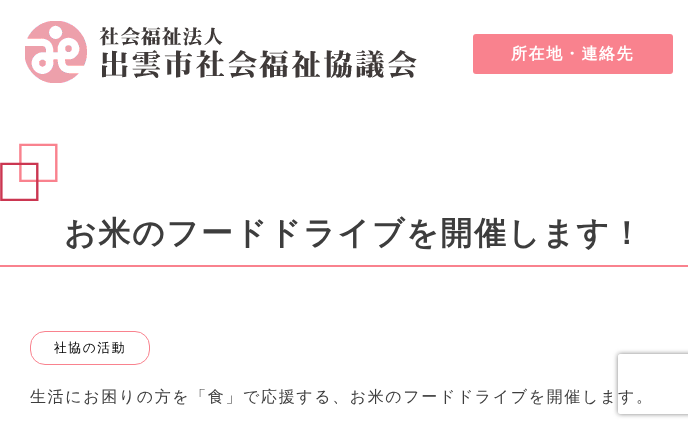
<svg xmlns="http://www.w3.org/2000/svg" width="688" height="428">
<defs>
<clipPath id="clip1"><path d="M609 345h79v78h-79zm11 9h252c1 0 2 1 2 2v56c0 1-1 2-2 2h-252c-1 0-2-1-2-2v-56c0-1 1-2 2-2z" clip-rule="evenodd"/></clipPath>
</defs>
<rect width="100%" height="100%" fill="#fff"/>
<image x="25" y="21" width="392" height="62" href="media/1.png"/>
<rect x="473" y="34" width="200" height="40" rx="3" fill="#f9828e"/>
<text x="511" y="59" style="font-family:WenQuanYi Zen Hei;font-size:16px;font-weight:bold;letter-spacing:1.6px;fill:#fff">所在地・連絡先</text>
<rect y="265" width="688" height="2" fill="#f9828e"/>
<text x="19" y="182" style="font-family:Liberation Sans;font-size:64px;font-weight:bold;letter-spacing:1.6px;fill:#f9828e">□</text>
<text x="0" y="201" style="font-family:Liberation Sans;font-size:64px;font-weight:bold;letter-spacing:1.6px;fill:#cb3651">□</text>
<text x="64" y="244" style="font-family:WenQuanYi Zen Hei;font-size:32px;font-weight:bold;letter-spacing:1.6px;fill:#3d3d3d">お米のフードドライブを開催します！</text>
<rect x="30.5" y="331.5" width="119" height="33" rx="14.5" fill="none" stroke="#f9828e"/>
<text x="54" y="352" style="font-family:WenQuanYi Zen Hei;font-size:12.75px;font-weight:500;letter-spacing:1.6px;fill:#000">社協の活動</text>
<text x="30" y="402" style="font-family:WenQuanYi Zen Hei;font-size:16px;font-weight:500;letter-spacing:1.6px;fill:#3d3d3d">生活にお困りの方を「食」で応援する、お米のフードドライブを開催します。</text>
<g clip-path="url(#clip1)">
<rect x="618" y="354" width="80" height="60" rx="2" fill="#808080" filter="blur(2.5px)"/>
</g>
</svg>
